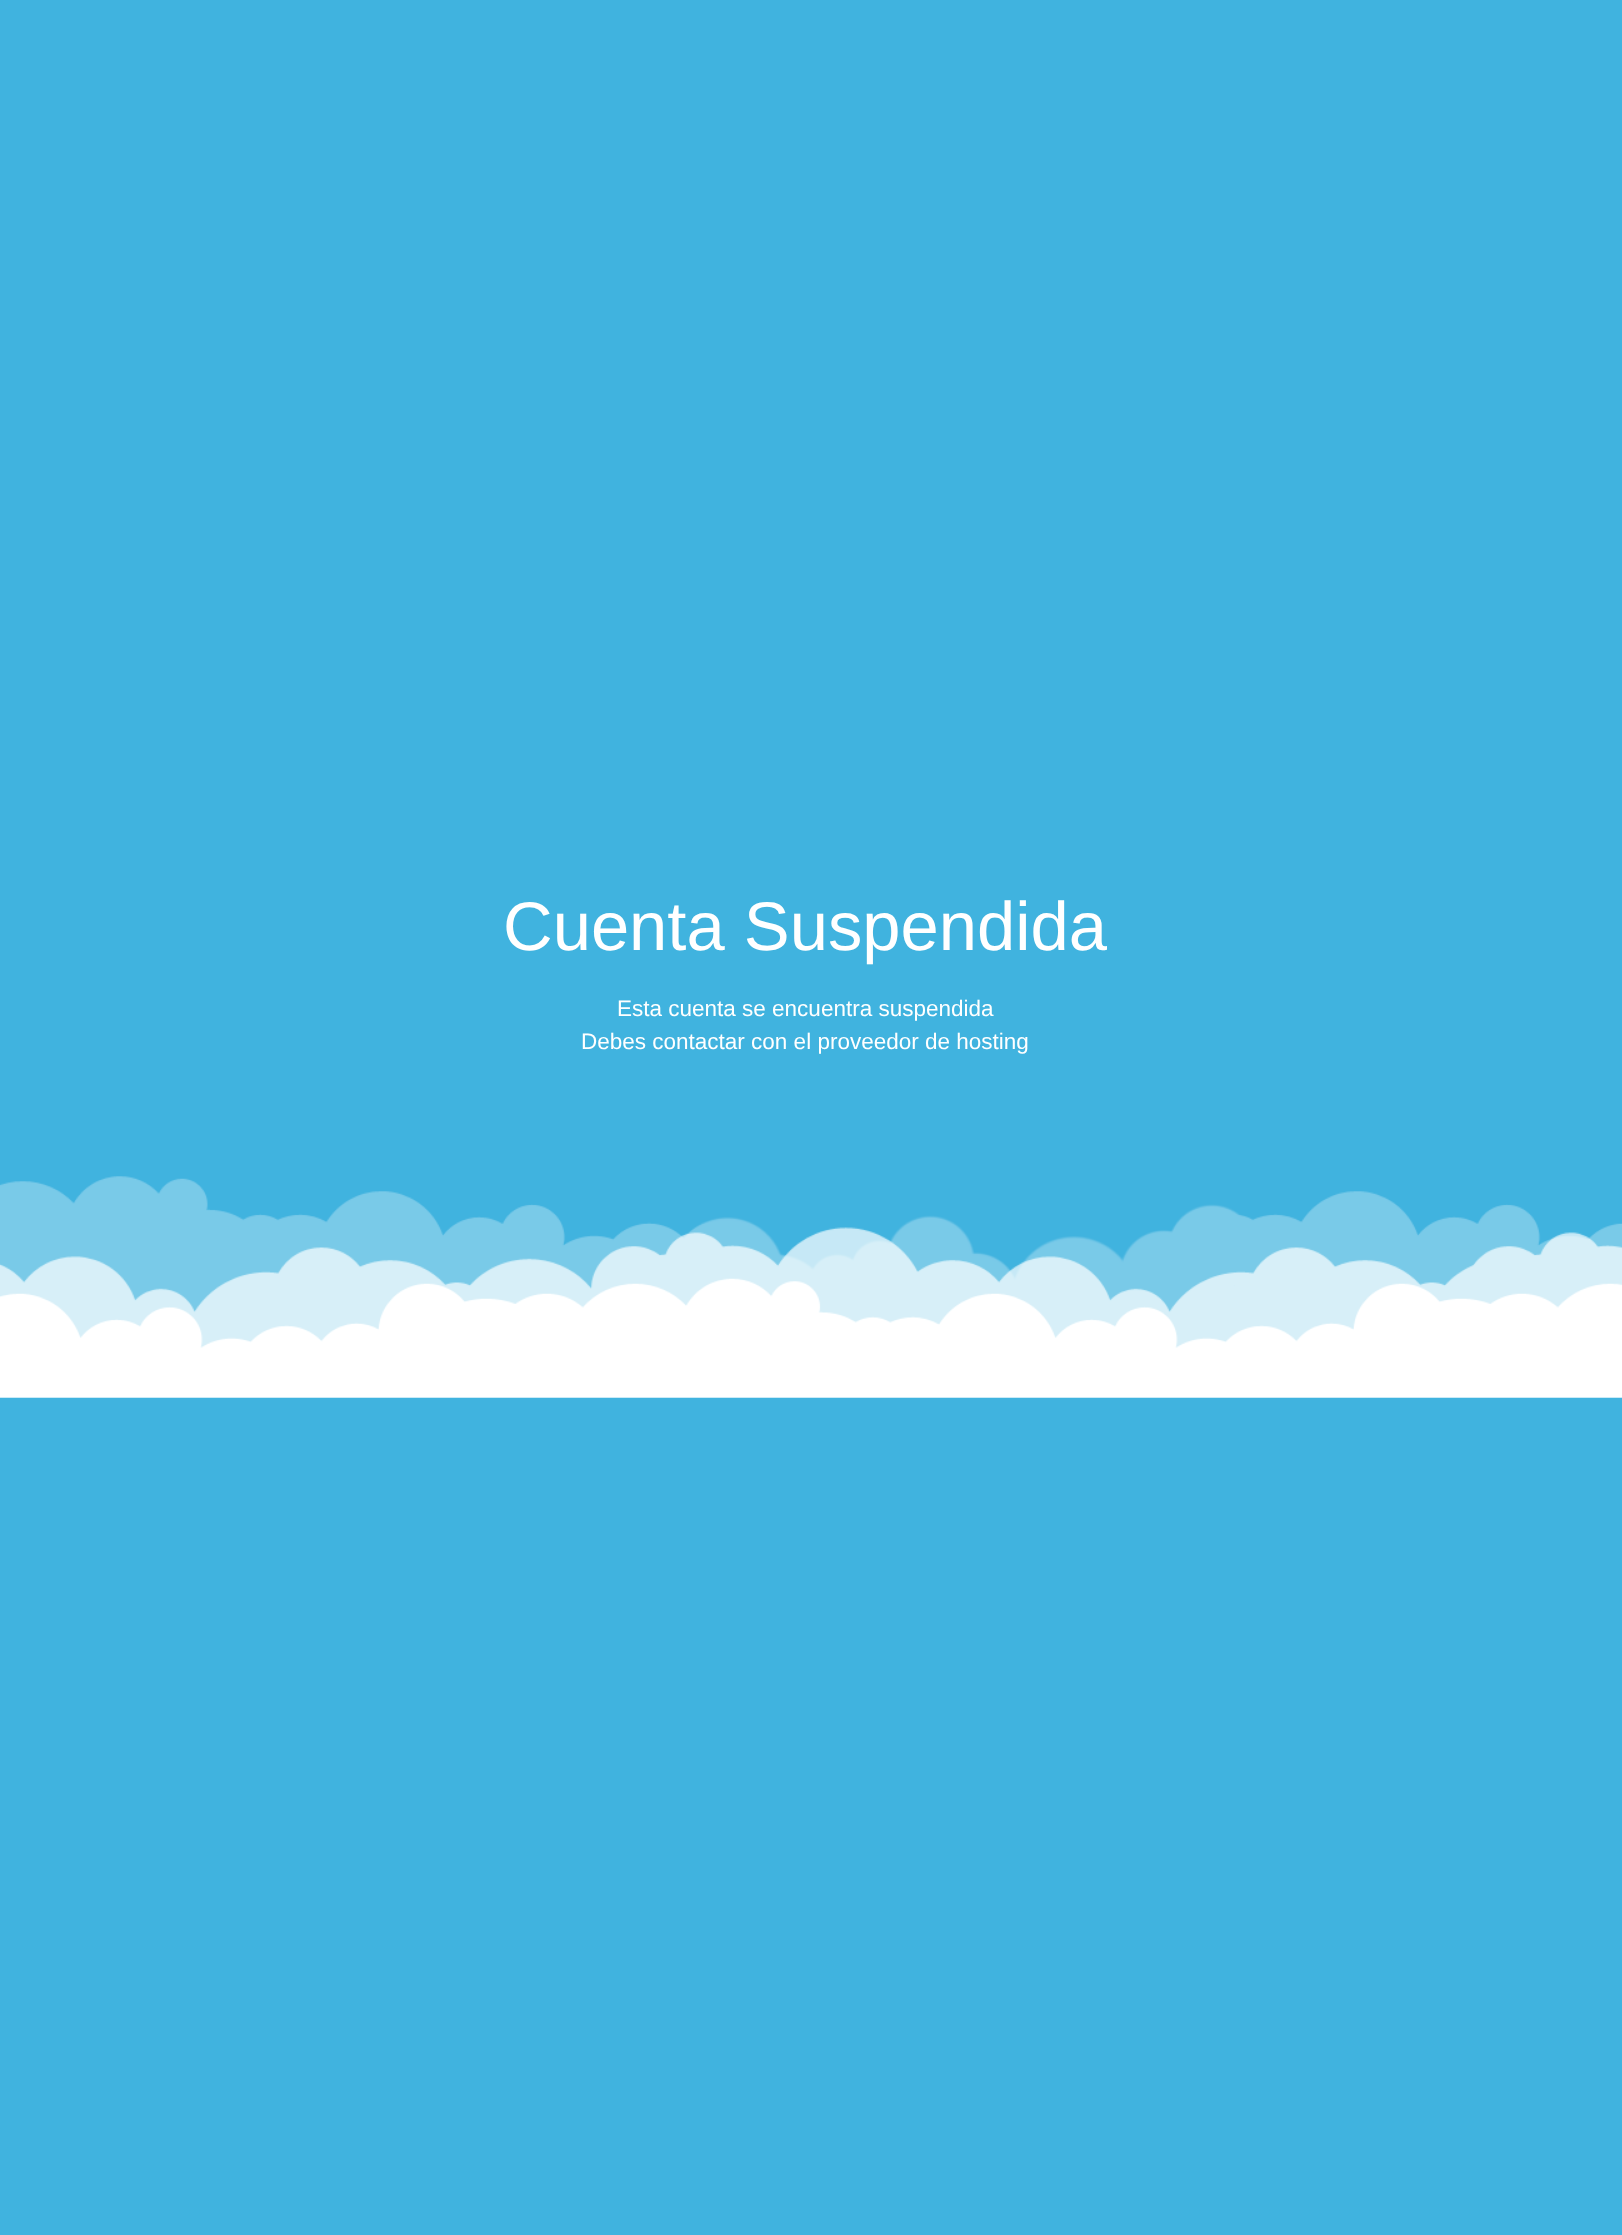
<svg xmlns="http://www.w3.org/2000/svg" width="1622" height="2235">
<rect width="100%" height="100%" fill="#40b3df"/>
<text x="503" y="950" style="font-family:Liberation Sans;font-size:68.75px;fill:#fff">Cuenta Suspendida</text>
<text x="617" y="1016" style="font-family:Liberation Sans;font-size:22.5px;fill:#fff">Esta cuenta se encuentra suspendida</text>
<text x="581" y="1049" style="font-family:Liberation Sans;font-size:22.5px;fill:#fff">Debes contactar con el proveedor de hosting</text>
<image x="0" y="1176" width="1622" height="222" href="media/1.png"/>
<image x="0" y="1227" width="1622" height="171" href="media/2.png"/>
<image x="0" y="1278" width="1622" height="120" href="media/3.png"/>
</svg>
